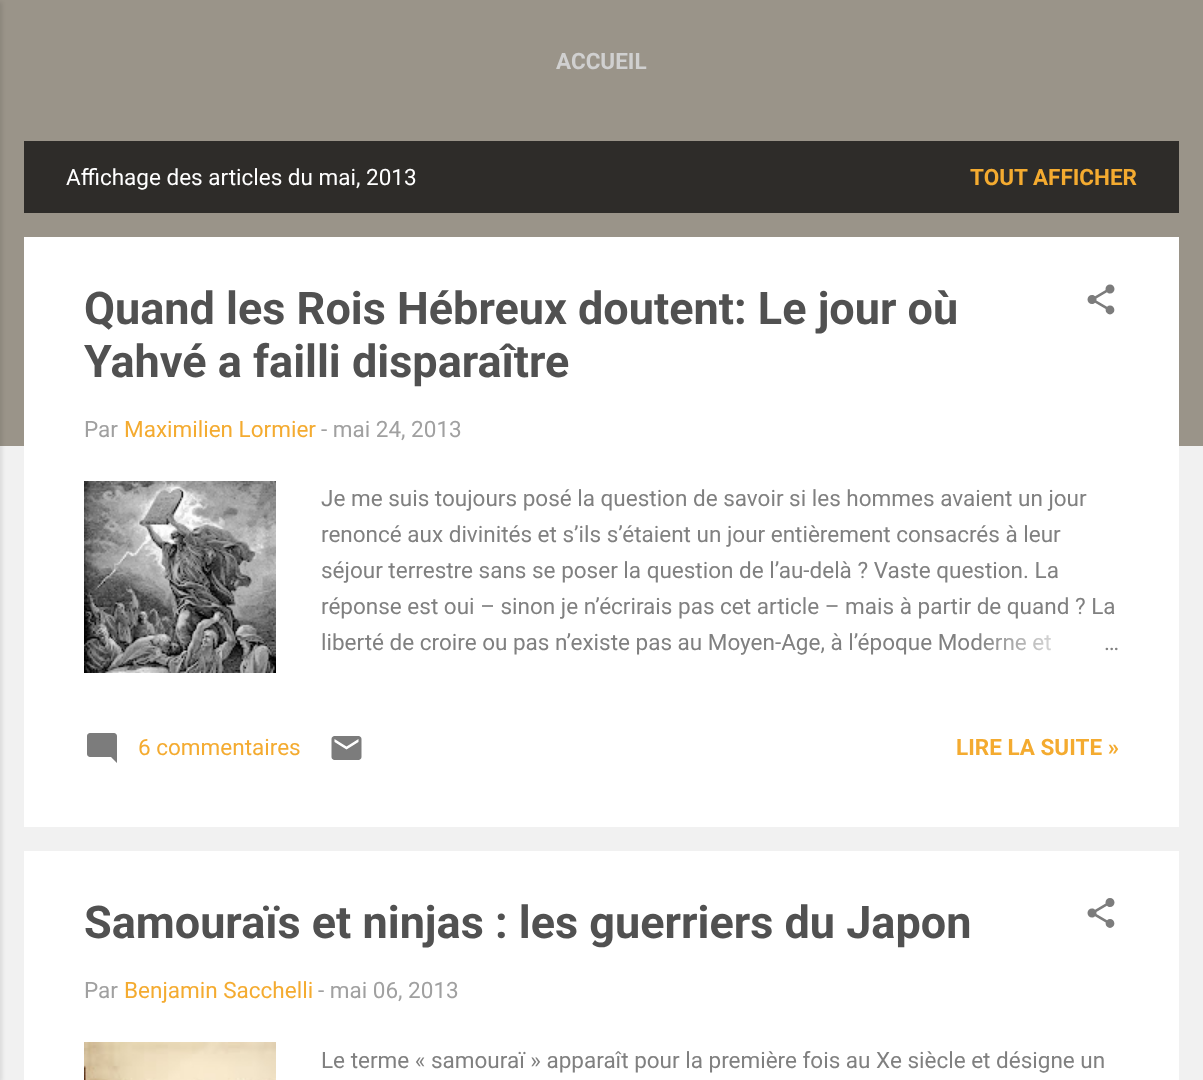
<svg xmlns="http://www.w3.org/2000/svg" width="1203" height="1080">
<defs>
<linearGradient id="g1" gradientUnits="userSpaceOnUse" x1="1119" y1="644" x2="975" y2="644"><stop offset="0" stop-color="#fff"/><stop offset="0.2" stop-color="#fff"/><stop offset="1" stop-color="#fff" stop-opacity="0"/></linearGradient>
</defs>
<rect width="100%" height="100%" fill="#f1f1f1"/>
<rect width="1203" height="446" fill="#9a9489"/>
<rect x="-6" y="2" width="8" height="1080" fill="#0000001a" filter="blur(2px)"/>
<text x="556" y="69" style="font-family:Roboto;font-size:22.5px;font-weight:bold;fill:#d0d0d0">ACCUEIL</text>
<rect x="24" y="141" width="1155" height="72" fill="#2e2c29"/>
<text x="66" y="185" style="font-family:Roboto;font-size:22.5px;fill:#fff">Affichage des articles du mai, 2013</text>
<text x="970" y="185" style="font-family:Roboto;font-size:22.5px;font-weight:bold;fill:#f4ab30">TOUT AFFICHER</text>
<rect x="24" y="237" width="1155" height="590" fill="#fff"/>
<text x="84" y="324" style="font-family:Roboto;font-size:45px;font-weight:bold;fill:#515151">Quand les Rois Hébreux doutent: Le jour où</text>
<text x="84" y="377" style="font-family:Roboto;font-size:45px;font-weight:bold;fill:#515151">Yahvé a failli disparaître</text>
<image x="1087" y="284" width="28" height="31" href="media/1.png"/>
<text x="84" y="437" style="font-family:Roboto;font-size:22.5px;fill:#a0a0a0">Par</text>
<text x="124" y="437" style="font-family:Roboto;font-size:22.5px;fill:#f4ab30">Maximilien Lormier</text>
<text x="321" y="437" style="font-family:Roboto;font-size:22.5px;fill:#a0a0a0">- mai 24, 2013</text>
<image x="84" y="481" width="192" height="192" href="media/2.png"/>
<text x="321" y="506" style="font-family:Roboto;font-size:22.5px;fill:#808080">Je me suis toujours posé la question de savoir si les hommes avaient un jour</text>
<text x="321" y="542" style="font-family:Roboto;font-size:22.5px;fill:#808080">renoncé aux divinités et s’ils s’étaient un jour entièrement consacrés à leur</text>
<text x="321" y="578" style="font-family:Roboto;font-size:22.5px;fill:#808080">séjour terrestre sans se poser la question de l’au-delà ? Vaste question. La</text>
<text x="321" y="614" style="font-family:Roboto;font-size:22.5px;fill:#808080">réponse est oui – sinon je n’écrirais pas cet article – mais à partir de quand ? La</text>
<text x="321" y="650" style="font-family:Roboto;font-size:22.5px;fill:#808080">liberté de croire ou pas n’existe pas au Moyen-Age, à l’époque Moderne et</text>
<rect x="977" y="633" width="74" height="18" fill="url(#g1)"/>
<text x="1104" y="650" style="font-family:Roboto;font-size:22.5px;fill:#808080">…</text>
<image x="87" y="733" width="30" height="30" href="media/3.png"/>
<text x="138" y="755" style="font-family:Roboto;font-size:22.5px;fill:#f4ab30">6 commentaires</text>
<image x="331" y="736" width="31" height="24" href="media/4.png"/>
<text x="956" y="755" style="font-family:Roboto;font-size:22.5px;font-weight:bold;fill:#f4ab30">LIRE LA SUITE »</text>
<rect x="24" y="851" width="1155" height="229" fill="#fff"/>
<text x="84" y="938" style="font-family:Roboto;font-size:45px;font-weight:bold;fill:#515151">Samouraïs et ninjas : les guerriers du Japon</text>
<image x="1087" y="898" width="28" height="30" href="media/5.png"/>
<text x="84" y="998" style="font-family:Roboto;font-size:22.5px;fill:#a0a0a0">Par</text>
<text x="124" y="998" style="font-family:Roboto;font-size:22.5px;fill:#f4ab30">Benjamin Sacchelli</text>
<text x="318" y="998" style="font-family:Roboto;font-size:22.5px;fill:#a0a0a0">- mai 06, 2013</text>
<image x="84" y="1042" width="192" height="38" href="media/6.png"/>
<text x="321" y="1068" style="font-family:Roboto;font-size:22.5px;fill:#808080">Le terme « samouraï » apparaît pour la première fois au Xe siècle et désigne un</text>
</svg>
